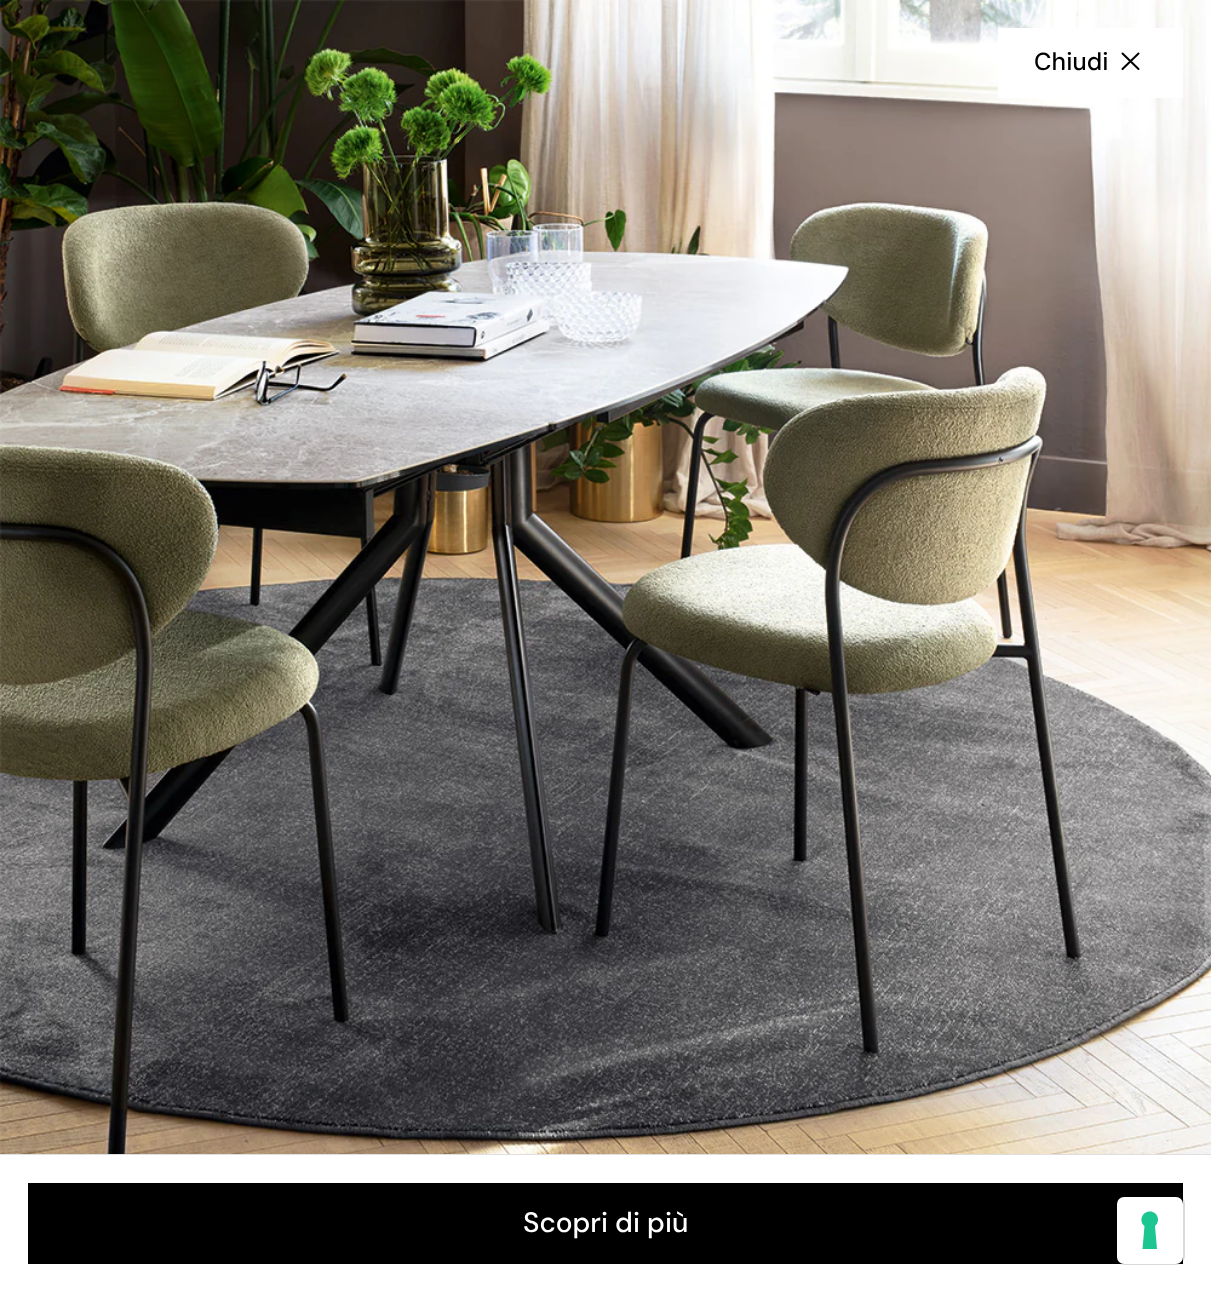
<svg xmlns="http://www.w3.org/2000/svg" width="1211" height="1290">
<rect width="100%" height="100%" fill="#fff"/>
<image x="0" y="0" width="1211" height="1154" href="media/1.png"/>
<rect x="998" y="28" width="185" height="70" fill="#fff"/>
<text x="1034" y="70" style="font-family:'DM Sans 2';font-size:24.5px;font-weight:500;fill:#000">Chiudi</text>
<path d="M1138.5 53.5l-16 15.5m0-15.5l16 15.5" fill="none" stroke="#000" stroke-width="2" stroke-linecap="round" stroke-linejoin="round"/>
<rect y="1154" width="1211" height="1" fill="#dfdfdf"/>
<rect x="28" y="1183" width="1155" height="81" fill="#000"/>
<text x="523" y="1232" style="font-family:DM Sans;font-size:28px;font-weight:500;fill:#fff">Scopri di più</text>
<rect x="1116" y="1196" width="68" height="68" rx="8" fill="none" stroke="#00000026" stroke-width="2"/>
<rect x="1117" y="1197" width="66" height="67" rx="7" fill="#fff"/>
<path d="M1150 1211.5c7.5 0 11 9.5 5 14.5l2 23h-14.5l2-23c-6-5-2.5-14.5 5.5-14.5z" fill="#1cc691" fill-rule="evenodd"/>
</svg>
